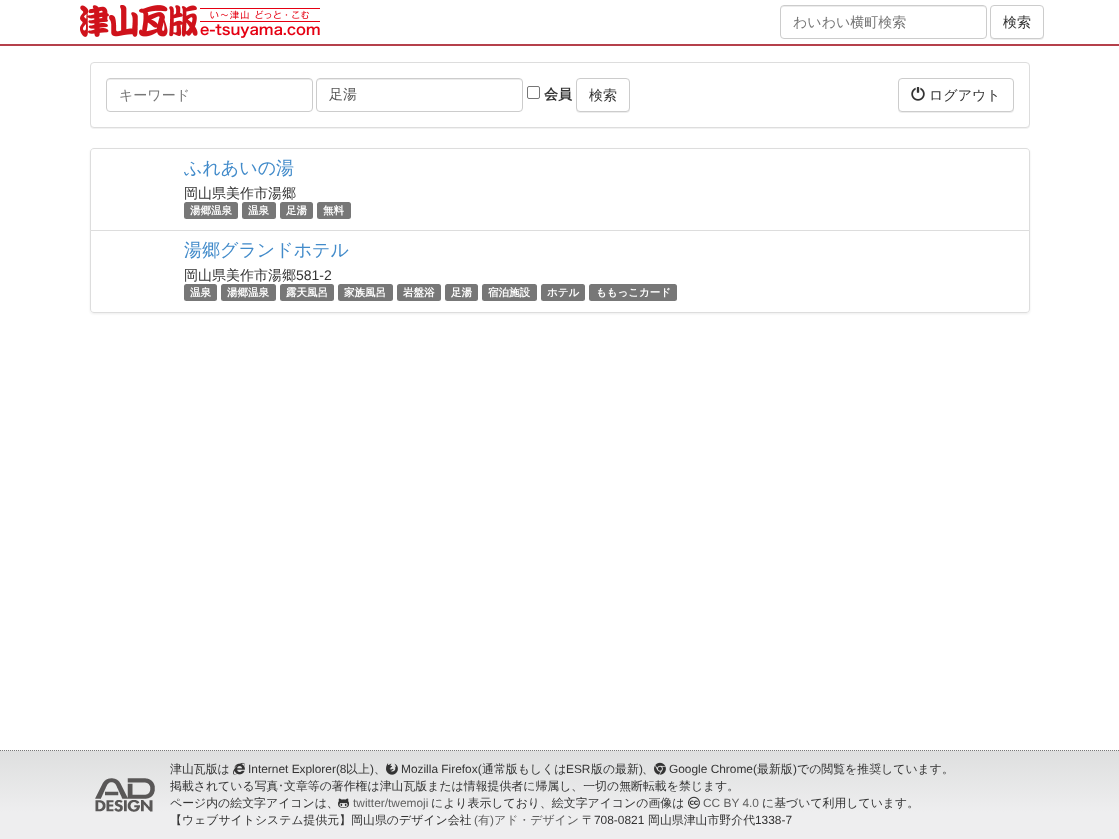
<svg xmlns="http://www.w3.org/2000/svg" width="1119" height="839">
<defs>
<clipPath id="clip1"><path d="M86 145h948v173h-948zm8 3h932c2 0 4 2 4 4v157c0 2-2 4-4 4h-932c-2 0-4-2-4-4v-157c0-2 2-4 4-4z" clip-rule="evenodd"/></clipPath>
<linearGradient id="g1" gradientUnits="userSpaceOnUse" x1="560" y1="751" x2="560" y2="839"><stop offset="0" stop-color="#dedfdf"/><stop offset="0.7" stop-color="#eeeeef"/></linearGradient>
<clipPath id="clip2"><rect x="170" y="761" width="784" height="68"/></clipPath>
</defs>
<rect width="100%" height="100%" fill="#fff"/>
<rect y="44" width="1119" height="2" fill="#b5404b"/>
<image x="80" y="5" width="240" height="33" href="media/1.png"/>
<path d="M784 7h199c2 0 3 1 3 3c0-2-1-4-3-4h-199c-2 0-3 2-3 4c0-2 1-3 3-3z" fill="#ececec"/>
<rect x="780.5" y="5.5" width="206" height="33" rx="3.5" fill="none" stroke="#ccc"/>
<text x="793" y="27" style="font-family:WenQuanYi Zen Hei;font-size:14px;font-weight:500;fill:#777">わいわい横町検索</text>
<rect x="990" y="6" width="54" height="34" rx="4" fill="#00000012" filter="blur(0.5px)"/>
<rect x="990.5" y="5.5" width="53" height="33" rx="3.5" fill="#fff" stroke="#ccc"/>
<text x="1003" y="27" style="font-family:WenQuanYi Zen Hei;font-size:14px;font-weight:500;fill:#333">検索</text>
<rect x="90" y="63" width="940" height="66" rx="4" fill="#0000000d" filter="blur(0.5px)"/>
<rect x="90.5" y="62.5" width="939" height="65" rx="3.5" fill="#fff" stroke="#ddd"/>
<path d="M110 80h199c2 0 3 1 3 3c0-2-1-4-3-4h-199c-2 0-3 2-3 4c0-2 1-3 3-3z" fill="#ececec"/>
<rect x="106.5" y="78.5" width="206" height="33" rx="3.5" fill="none" stroke="#ccc"/>
<text x="119" y="100" style="font-family:WenQuanYi Zen Hei;font-size:14px;font-weight:500;fill:#777">キーワード</text>
<path d="M320 80h199c2 0 3 1 3 3c0-2-1-4-3-4h-199c-2 0-3 2-3 4c0-2 1-3 3-3z" fill="#ececec"/>
<rect x="316.5" y="78.5" width="206" height="33" rx="3.5" fill="none" stroke="#ccc"/>
<text x="329" y="99" style="font-family:WenQuanYi Zen Hei;font-size:14px;font-weight:500;fill:#555">足湯</text>
<rect x="527.5" y="86.5" width="12" height="12" rx="1.5" fill="none" stroke="#767676"/>
<text x="544" y="99" style="font-family:WenQuanYi Zen Hei;font-size:14px;font-weight:bold;fill:#333">会員</text>
<rect x="576" y="79" width="54" height="34" rx="4" fill="#00000012" filter="blur(0.5px)"/>
<rect x="576.5" y="78.5" width="53" height="33" rx="3.5" fill="#fff" stroke="#ccc"/>
<text x="589" y="100" style="font-family:WenQuanYi Zen Hei;font-size:14px;font-weight:500;fill:#333">検索</text>
<rect x="898" y="79" width="116" height="34" rx="4" fill="#00000012" filter="blur(0.5px)"/>
<rect x="898.5" y="78.5" width="115" height="33" rx="3.5" fill="#fff" stroke="#ccc"/>
<image x="911" y="87" width="14" height="14" href="media/2.png"/>
<text x="929" y="100" style="font-family:WenQuanYi Zen Hei;font-size:14px;font-weight:500;fill:#333">ログアウト</text>
<g clip-path="url(#clip1)">
<rect x="90" y="149" width="940" height="165" rx="4" fill="#00000012" filter="blur(1px)"/>
</g>
<path d="M94 148.5h932c2 0 3.5 1.5 3.5 3.5v78.5h-939v-78.5c0-2 1.5-3.5 3.5-3.5z" fill="none" stroke="#ddd"/>
<text x="184" y="174" style="font-family:WenQuanYi Zen Hei;font-size:18px;font-weight:500;fill:#428bca">ふれあいの湯</text>
<text x="184" y="198" style="font-family:WenQuanYi Zen Hei;font-size:14px;font-weight:500;fill:#333">岡山県美作市湯郷</text>
<rect x="184" y="202" width="54" height="17" rx="2.5" fill="#777"/>
<text x="190" y="214" style="font-family:WenQuanYi Zen Hei;font-size:10.5px;font-weight:bold;fill:#fff">湯郷温泉</text>
<rect x="242" y="202" width="34" height="17" rx="2.5" fill="#777"/>
<text x="248" y="214" style="font-family:WenQuanYi Zen Hei;font-size:10.5px;font-weight:bold;fill:#fff">温泉</text>
<rect x="280" y="202" width="33" height="17" rx="2.5" fill="#777"/>
<text x="286" y="214" style="font-family:WenQuanYi Zen Hei;font-size:10.5px;font-weight:bold;fill:#fff">足湯</text>
<rect x="317" y="202" width="34" height="17" rx="2.5" fill="#777"/>
<text x="323" y="214" style="font-family:WenQuanYi Zen Hei;font-size:10.5px;font-weight:bold;fill:#fff">無料</text>
<path d="M90.5 230.5h939v78.5c0 2-1.5 3.5-3.5 3.5h-932c-2 0-3.5-1.5-3.5-3.5z" fill="#fff" stroke="#ddd"/>
<text x="184" y="256" style="font-family:WenQuanYi Zen Hei;font-size:18px;font-weight:500;fill:#428bca">湯郷グランドホテル</text>
<text x="184" y="280" style="font-family:WenQuanYi Zen Hei;font-size:14px;font-weight:500;fill:#333">岡山県美作市湯郷</text>
<text x="296" y="280" style="font-family:Liberation Sans;font-size:14px;fill:#333">581-2</text>
<rect x="184" y="284" width="33" height="17" rx="2.5" fill="#777"/>
<text x="190" y="296" style="font-family:WenQuanYi Zen Hei;font-size:10.5px;font-weight:bold;fill:#fff">温泉</text>
<rect x="221" y="284" width="55" height="17" rx="2.5" fill="#777"/>
<text x="227" y="296" style="font-family:WenQuanYi Zen Hei;font-size:10.5px;font-weight:bold;fill:#fff">湯郷温泉</text>
<rect x="280" y="284" width="54" height="17" rx="2.5" fill="#777"/>
<text x="286" y="296" style="font-family:WenQuanYi Zen Hei;font-size:10.5px;font-weight:bold;fill:#fff">露天風呂</text>
<rect x="338" y="284" width="55" height="17" rx="2.5" fill="#777"/>
<text x="344" y="296" style="font-family:WenQuanYi Zen Hei;font-size:10.5px;font-weight:bold;fill:#fff">家族風呂</text>
<rect x="397" y="284" width="44" height="17" rx="2.5" fill="#777"/>
<text x="403" y="296" style="font-family:WenQuanYi Zen Hei;font-size:10.5px;font-weight:bold;fill:#fff">岩盤浴</text>
<rect x="445" y="284" width="33" height="17" rx="2.5" fill="#777"/>
<text x="451" y="296" style="font-family:WenQuanYi Zen Hei;font-size:10.5px;font-weight:bold;fill:#fff">足湯</text>
<rect x="482" y="284" width="55" height="17" rx="2.5" fill="#777"/>
<text x="488" y="296" style="font-family:WenQuanYi Zen Hei;font-size:10.5px;font-weight:bold;fill:#fff">宿泊施設</text>
<rect x="541" y="284" width="44" height="17" rx="2.5" fill="#777"/>
<text x="547" y="296" style="font-family:WenQuanYi Zen Hei;font-size:10.5px;font-weight:bold;fill:#fff">ホテル</text>
<rect x="589" y="284" width="88" height="17" rx="2.5" fill="#777"/>
<text x="596" y="296" style="font-family:WenQuanYi Zen Hei;font-size:10.5px;font-weight:bold;fill:#fff">ももっこカード</text>
<rect x="1" y="750" width="1117" height="1" fill="#eee"/>
<path d="M0 750.5h1119" fill="none" stroke="#777" stroke-dasharray="1 1"/>
<rect y="751" width="1119" height="88" fill="url(#g1)"/>
<image x="95" y="778" width="60" height="34" href="media/3.png"/>
<text x="170" y="773" style="font-family:WenQuanYi Zen Hei;font-size:11.9px;font-weight:500;fill:#333">津山瓦版は</text>
<image x="233" y="762" width="12" height="13" href="media/4.png"/>
<text x="248" y="773" style="font-family:Liberation Sans;font-size:11.9px;fill:#333">Internet Explorer(8</text>
<text x="346" y="773" style="font-family:WenQuanYi Zen Hei;font-size:11.9px;font-weight:500;fill:#333">以上</text>
<text x="370" y="773" style="font-family:Liberation Sans;font-size:11.9px;fill:#333">)</text>
<text x="374" y="773" style="font-family:WenQuanYi Zen Hei;font-size:11.9px;font-weight:500;fill:#333">、</text>
<image x="386" y="763" width="12" height="12" href="media/5.png"/>
<text x="401" y="773" style="font-family:Liberation Sans;font-size:11.9px;fill:#333">Mozilla Firefox(</text>
<text x="482" y="773" style="font-family:WenQuanYi Zen Hei;font-size:11.9px;font-weight:500;fill:#333">通常版もしくは</text>
<text x="566" y="773" style="font-family:Liberation Sans;font-size:11.9px;fill:#333">ESR</text>
<text x="591" y="773" style="font-family:WenQuanYi Zen Hei;font-size:11.9px;font-weight:500;fill:#333">版の最新</text>
<text x="639" y="773" style="font-family:Liberation Sans;font-size:11.9px;fill:#333">)</text>
<text x="642" y="773" style="font-family:WenQuanYi Zen Hei;font-size:11.9px;font-weight:500;fill:#333">、</text>
<image x="654" y="762" width="12" height="13" href="media/6.png"/>
<text x="669" y="773" style="font-family:Liberation Sans;font-size:11.9px;fill:#333">Google Chrome(</text>
<text x="757" y="773" style="font-family:WenQuanYi Zen Hei;font-size:11.9px;font-weight:500;fill:#333">最新版</text>
<text x="793" y="773" style="font-family:Liberation Sans;font-size:11.9px;fill:#333">)</text>
<text x="797" y="773" style="font-family:WenQuanYi Zen Hei;font-size:11.9px;font-weight:500;fill:#333">での閲覧を推奨しています。</text>
<g clip-path="url(#clip2)">
<text x="170" y="790" style="font-family:WenQuanYi Zen Hei;font-size:11.9px;font-weight:500;fill:#333">掲載されている写真</text>
</g>
<text x="278" y="790" style="font-family:IPAPGothic;font-size:11.9px;fill:#333">･</text>
<text x="284" y="790" style="font-family:WenQuanYi Zen Hei;font-size:11.9px;font-weight:500;fill:#333">文章等の著作権は津山瓦版または情報提供者に帰属し、一切の無断転載を禁じます。</text>
<text x="170" y="807" style="font-family:WenQuanYi Zen Hei;font-size:11.9px;font-weight:500;fill:#333">ページ内の絵文字アイコンは、</text>
<image x="338" y="798" width="11" height="10" href="media/7.png"/>
<text x="353" y="807" style="font-family:Liberation Sans;font-size:11.9px;fill:#606060">twitter/twemoji</text>
<text x="431" y="807" style="font-family:WenQuanYi Zen Hei;font-size:11.9px;font-weight:500;fill:#333">により表示しており、絵文字アイコンの画像は</text>
<image x="688" y="796" width="12" height="13" href="media/8.png"/>
<text x="703" y="807" style="font-family:Liberation Sans;font-size:11.9px;fill:#606060">CC BY 4.0</text>
<text x="762" y="807" style="font-family:WenQuanYi Zen Hei;font-size:11.9px;font-weight:500;fill:#333">に基づいて利用しています。</text>
<text x="170" y="824" style="font-family:WenQuanYi Zen Hei;font-size:11.9px;font-weight:500;fill:#333">【ウェブサイトシステム提供元】岡山県のデザイン会社</text>
<text x="474" y="824" style="font-family:Liberation Sans;font-size:11.9px;fill:#606060">(</text>
<text x="478" y="824" style="font-family:WenQuanYi Zen Hei;font-size:11.9px;font-weight:500;fill:#606060">有</text>
<text x="490" y="824" style="font-family:Liberation Sans;font-size:11.9px;fill:#606060">)</text>
<text x="494" y="824" style="font-family:WenQuanYi Zen Hei;font-size:11.9px;font-weight:500;fill:#606060">アド・デザイン</text>
<text x="582" y="824" style="font-family:WenQuanYi Zen Hei;font-size:11.9px;font-weight:500;fill:#333">〒</text>
<text x="594" y="824" style="font-family:Liberation Sans;font-size:11.9px;fill:#333">708-0821</text>
<text x="648" y="824" style="font-family:WenQuanYi Zen Hei;font-size:11.9px;font-weight:500;fill:#333">岡山県津山市野介代</text>
<text x="755" y="824" style="font-family:Liberation Sans;font-size:11.9px;fill:#333">1338-7</text>
</svg>
